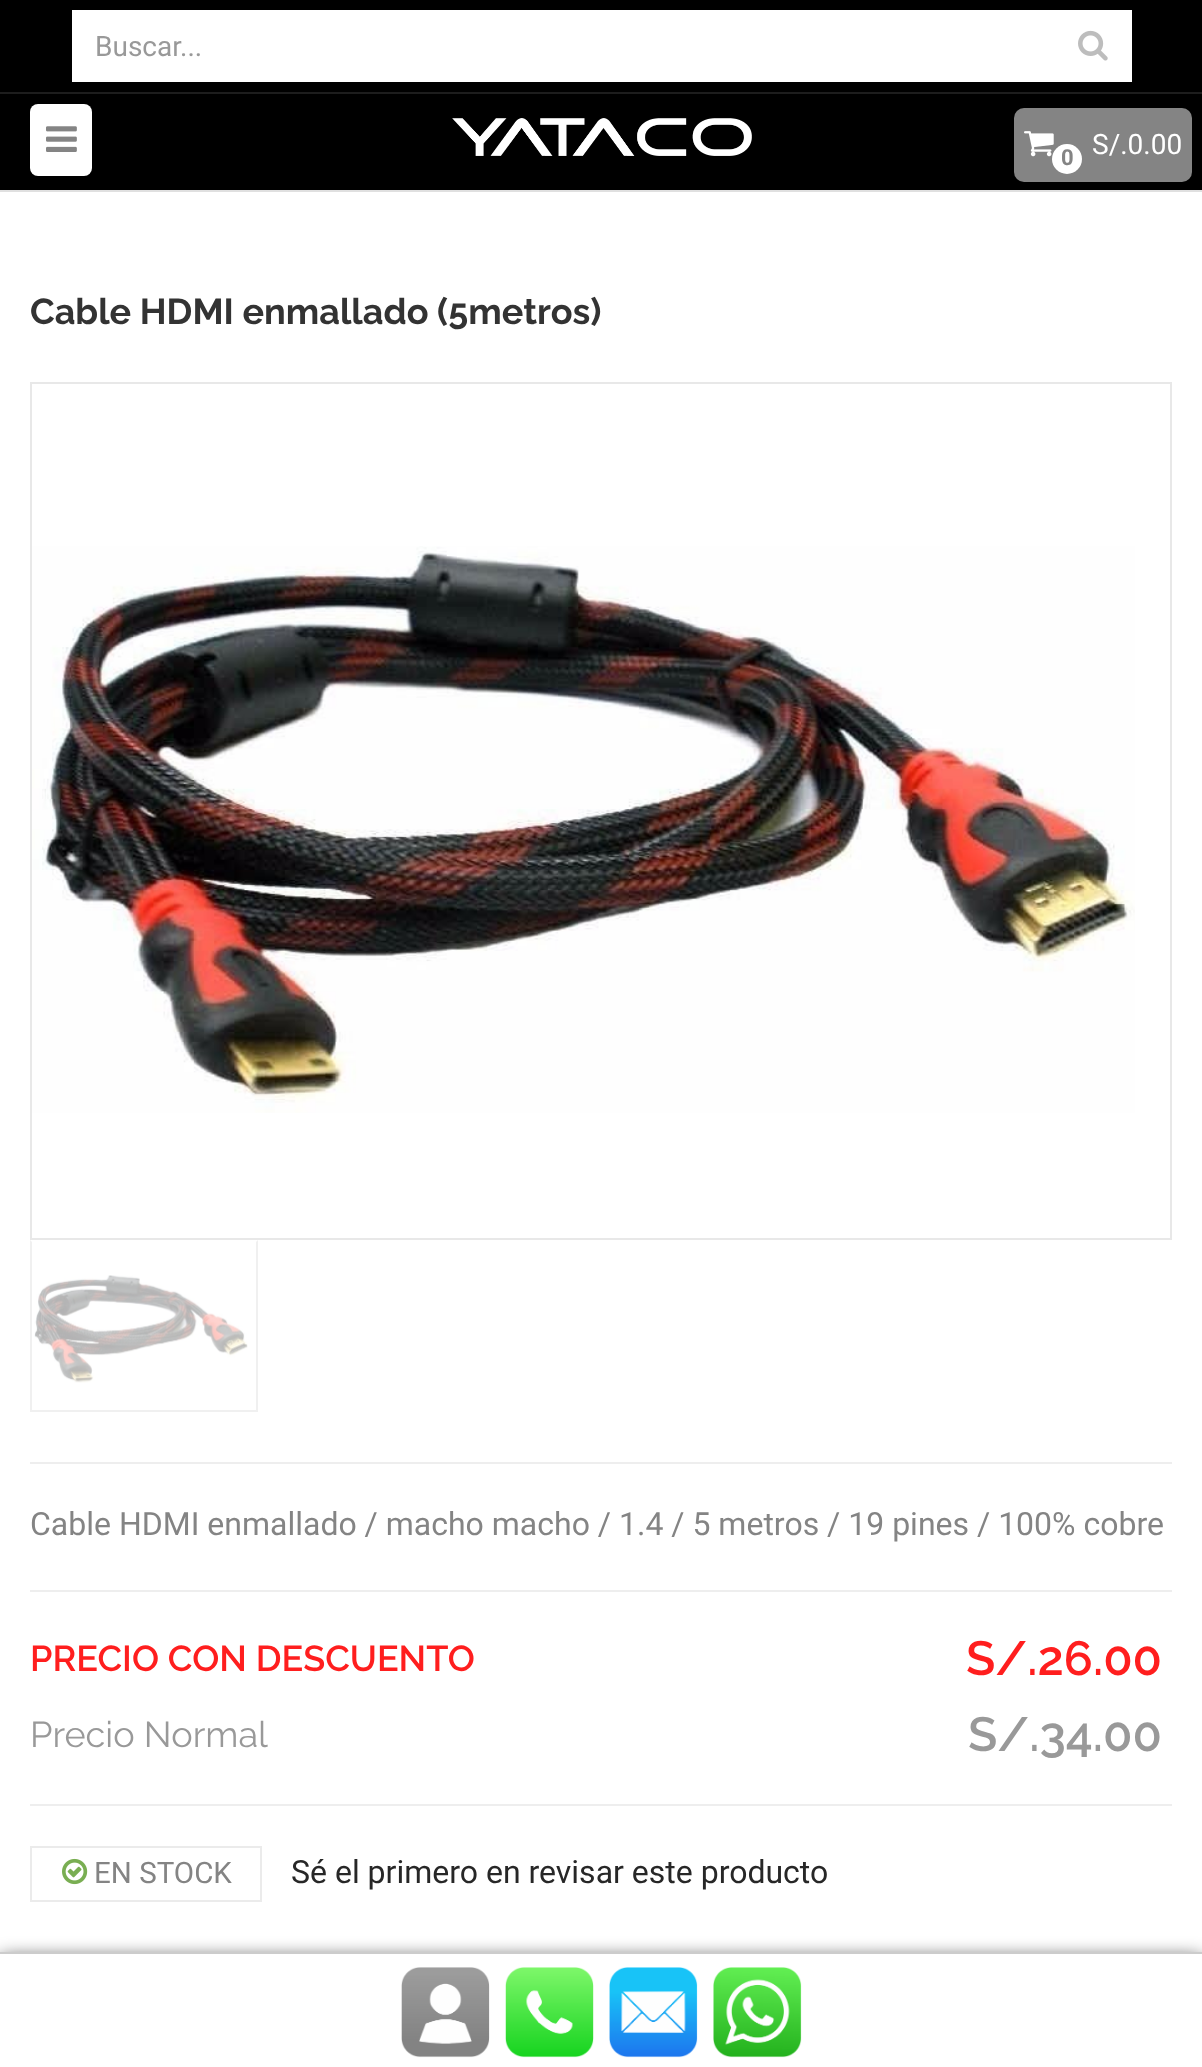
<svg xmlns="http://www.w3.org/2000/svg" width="1202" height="2067">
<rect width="100%" height="100%" fill="#fff"/>
<rect width="1202" height="92" fill="#000"/>
<rect x="72" y="10" width="1060" height="72" fill="#fff"/>
<text x="95" y="56" style="font-family:Roboto;font-size:28px;fill:#999">Buscar...</text>
<image x="1078" y="30" width="30" height="31" href="media/1.png"/>
<rect y="94" width="1202" height="96" fill="#000"/>
<rect y="92" width="1202" height="2" fill="#1d1d1d"/>
<rect y="190" width="1202" height="2" fill="#e0e0e0"/>
<rect x="30" y="104" width="62" height="72" rx="8" fill="#fff"/>
<image x="46" y="126" width="31" height="26" href="media/2.png"/>
<image x="452" y="118" width="300" height="38" href="media/3.png"/>
<rect x="1014" y="108" width="178" height="74" rx="10" fill="#848484"/>
<image x="1024" y="131" width="30" height="26" href="media/4.png"/>
<circle cx="1067" cy="159" r="15" fill="#fff"/>
<text x="1061" y="165" style="font-family:Roboto;font-size:22px;font-weight:bold;fill:#848484">0</text>
<text x="1092" y="154" style="font-family:Roboto;font-size:28px;fill:#fff">S/.0.00</text>
<text x="30" y="324" style="font-family:Raleway;font-size:36px;font-weight:bold;fill:#333">Cable HDMI enmallado (5metros)</text>
<rect x="31" y="383" width="1140" height="856" fill="none" stroke="#e8e8e8" stroke-width="2"/>
<image x="32" y="546" width="1103" height="567" href="media/5.png"/>
<path d="M258 1240v172l-2-2v-168z" fill="#f0f0f0"/>
<rect x="30" y="1410" width="228" height="2" fill="#f0f0f0"/>
<path d="M30 1412v-172l2 2v168z" fill="#f0f0f0"/>
<image x="34" y="1275" width="214" height="108" href="media/6.png"/>
<rect x="30" y="1462" width="1142" height="2" fill="#eee"/>
<text x="30" y="1535" style="font-family:Roboto;font-size:32px;fill:#848484">Cable HDMI enmallado / macho macho / 1.4 / 5 metros / 19 pines / 100% cobre</text>
<rect x="30" y="1590" width="1142" height="2" fill="#eee"/>
<text x="30" y="1671" style="font-family:Raleway;font-size:36px;font-weight:600;fill:#ff1e1e">PRECIO CON DESCUENTO</text>
<text x="966" y="1675" style="font-family:Raleway;font-size:48px;font-weight:600;fill:#ff1e1e">S/.26.00</text>
<text x="30" y="1747" style="font-family:Raleway;font-size:36px;fill:#999">Precio Normal</text>
<text x="968" y="1751" style="font-family:Raleway;font-size:48px;font-weight:600;fill:#999">S/.34.00</text>
<rect x="30" y="1804" width="1142" height="2" fill="#eee"/>
<rect x="31" y="1847" width="230" height="54" fill="none" stroke="#ebebeb" stroke-width="2"/>
<image x="62" y="1858" width="26" height="27" href="media/7.png"/>
<text x="94" y="1883" style="font-family:Roboto;font-size:29.5px;fill:#848484">EN STOCK</text>
<text x="291" y="1883" style="font-family:Roboto;font-size:32px;fill:#272727">Sé el primero en revisar este producto</text>
<rect y="1960" width="1202" height="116" fill="#000" filter="blur(10px)"/>
<rect y="1954" width="1202" height="113" fill="#fff"/>
<rect y="1952" width="1202" height="2" fill="#ccc"/>
<image x="401" y="1967" width="89" height="91" href="media/8.png"/>
<image x="505" y="1967" width="89" height="91" href="media/9.png"/>
<image x="609" y="1967" width="89" height="91" href="media/10.png"/>
<image x="713" y="1967" width="89" height="91" href="media/11.png"/>
</svg>
